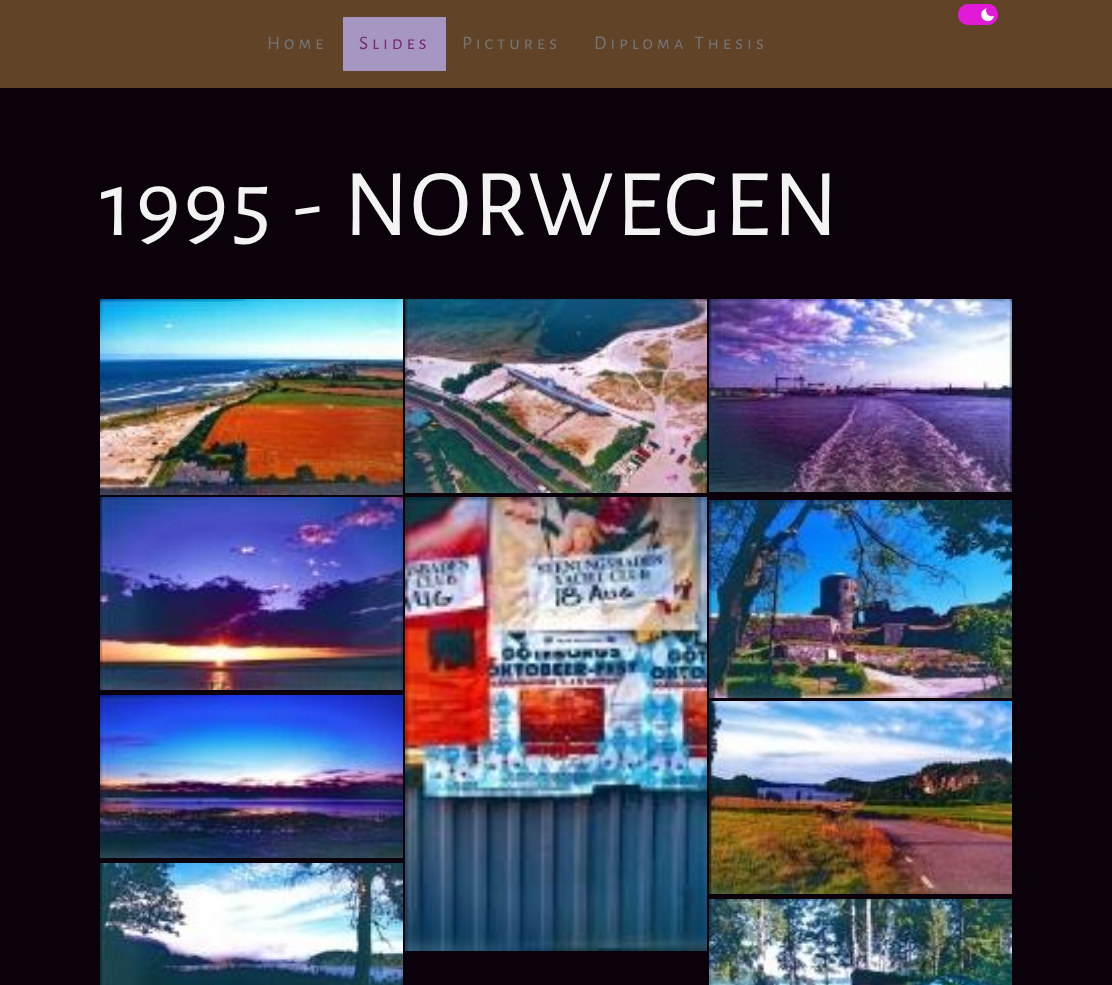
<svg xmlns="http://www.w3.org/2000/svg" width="1112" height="985">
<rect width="100%" height="100%" fill="#0b010b"/>
<rect width="1112" height="88" fill="#614427"/>
<rect x="958" y="4" width="40" height="21" rx="10.5" fill="#e01ad7"/>
<image x="981" y="8" width="14" height="14" href="media/1.png"/>
<rect x="959.5" y="5.5" width="37" height="18" rx="9" fill="none" stroke="#e01ad7" stroke-width="3"/>
<text x="267" y="49" style="font-family:Alegreya Sans SC;font-size:19.25px;letter-spacing:3.8px;fill:#747474">Home</text>
<rect x="343" y="17" width="103" height="54" fill="#a697c2"/>
<text x="359" y="49" style="font-family:Alegreya Sans SC;font-size:19.25px;letter-spacing:3.8px;fill:#7a296f">Slides</text>
<text x="462" y="49" style="font-family:Alegreya Sans SC;font-size:19.25px;letter-spacing:3.8px;fill:#747474">Pictures</text>
<text x="594" y="49" style="font-family:Alegreya Sans SC;font-size:19.25px;letter-spacing:3.8px;fill:#747474">Diploma Thesis</text>
<text x="100" y="235" style="font-family:Alegreya Sans SC;font-size:96px;letter-spacing:2.7px;fill:#f3f3f3">1995 - NORWEGEN</text>
<image x="100" y="299" width="303" height="196" href="media/2.png"/>
<image x="405" y="299" width="302" height="194" href="media/3.png"/>
<image x="709" y="299" width="303" height="193" href="media/4.png"/>
<image x="100" y="497" width="303" height="193" href="media/5.png"/>
<image x="405" y="497" width="302" height="454" href="media/6.png"/>
<image x="709" y="500" width="303" height="198" href="media/7.png"/>
<image x="100" y="695" width="303" height="163" href="media/8.png"/>
<image x="709" y="701" width="303" height="193" href="media/9.png"/>
<image x="100" y="863" width="303" height="122" href="media/10.png"/>
<image x="709" y="899" width="303" height="86" href="media/11.png"/>
</svg>
